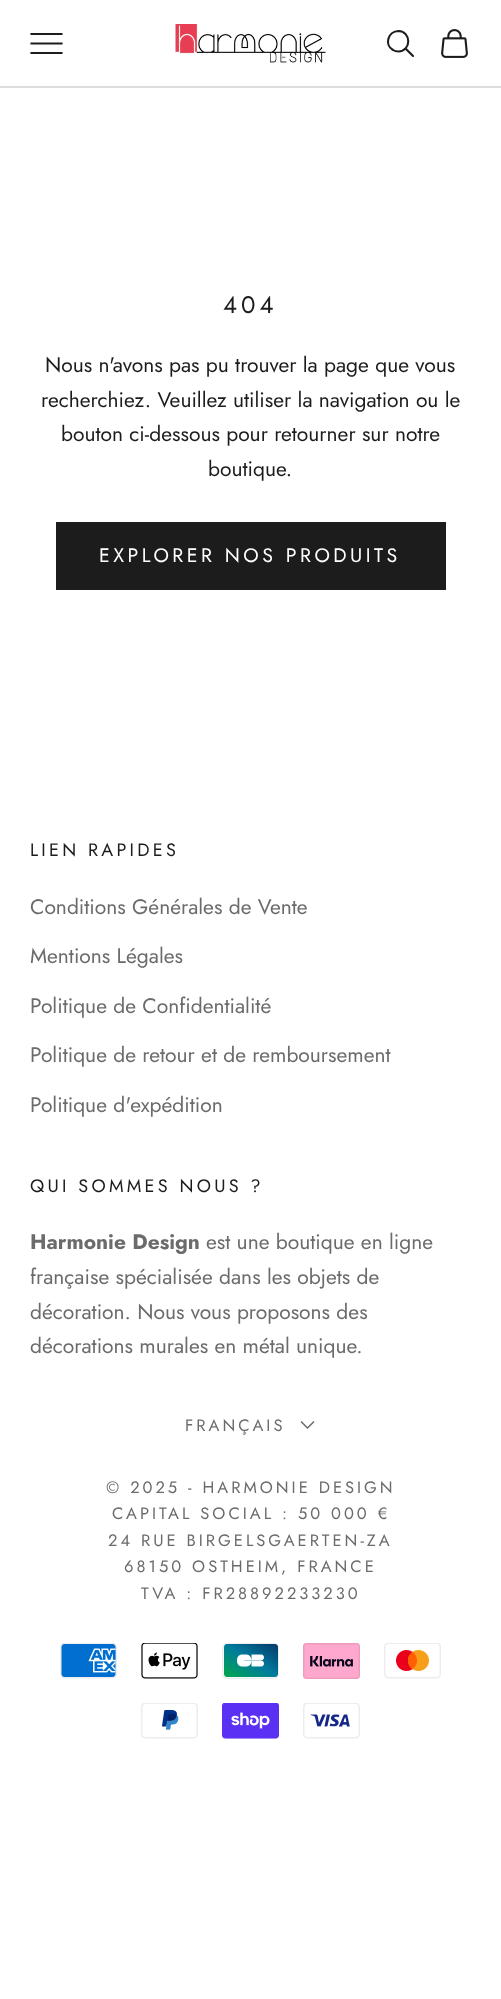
<svg xmlns="http://www.w3.org/2000/svg" width="501" height="1999">
<rect width="100%" height="100%" fill="#fff"/>
<rect y="86" width="501" height="2" fill="#ddd"/>
<path d="M31.5 53h30m-30-9.5h30m-30-9.5h30" fill="none" stroke="#1c1c1c" stroke-width="2.1" stroke-linecap="square"/>
<image x="175" y="24" width="151" height="39" href="media/1.png"/>
<path d="M398.5 31c-10.5 0-14.5 14-5.5 19c1.5 1 3.5 1.5 5.5 1.5c13-.5 13-20 0-20.5z" fill="none" stroke="#1c1c1c" stroke-width="2.1"/>
<path d="M406 49l7 7" fill="none" stroke="#1c1c1c" stroke-width="2.1" stroke-linecap="round"/>
<image x="441" y="29" width="27" height="29" href="media/2.png"/>
<text x="223" y="313" style="font-family:Jost;font-size:24px;letter-spacing:4px;fill:#1c1c1c">404</text>
<text x="45" y="372" style="font-family:Jost;font-size:21px;fill:#1c1c1c">Nous n'avons pas pu trouver la page que vous</text>
<text x="41" y="407" style="font-family:Jost;font-size:21px;fill:#1c1c1c">recherchiez. Veuillez utiliser la navigation ou le</text>
<text x="61" y="441" style="font-family:Jost;font-size:21px;fill:#1c1c1c">bouton ci-dessous pour retourner sur notre</text>
<text x="208" y="476" style="font-family:Jost;font-size:21px;fill:#1c1c1c">boutique.</text>
<rect x="57" y="523" width="388" height="66" fill="#1c1c1c" stroke="#1c1c1c" stroke-width="2"/>
<text x="99" y="562" style="font-family:Jost;font-size:19.5px;letter-spacing:3.5px;fill:#fff">EXPLORER NOS PRODUITS</text>
<text x="30" y="856" style="font-family:Jost;font-size:18px;letter-spacing:3.25px;fill:#1c1c1c">LIEN RAPIDES</text>
<text x="30" y="914" style="font-family:Jost;font-size:21px;fill:#6b6b6b">Conditions Générales de Vente</text>
<text x="30" y="963" style="font-family:Jost;font-size:21px;fill:#6b6b6b">Mentions Légales</text>
<text x="30" y="1013" style="font-family:Jost;font-size:21px;fill:#6b6b6b">Politique de Confidentialité</text>
<text x="30" y="1062" style="font-family:Jost;font-size:21px;fill:#6b6b6b">Politique de retour et de remboursement</text>
<text x="30" y="1112" style="font-family:Jost;font-size:21px;fill:#6b6b6b">Politique d'expédition</text>
<text x="30" y="1192" style="font-family:Jost;font-size:18px;letter-spacing:3.25px;fill:#1c1c1c">QUI SOMMES NOUS ?</text>
<text x="30" y="1249" style="font-family:Jost;font-size:21px;font-weight:bold;fill:#6b6b6b">Harmonie Design</text>
<text x="206" y="1249" style="font-family:Jost;font-size:21px;fill:#6b6b6b">est une boutique en ligne</text>
<text x="30" y="1284" style="font-family:Jost;font-size:21px;fill:#6b6b6b">française spécialisée dans les objets de</text>
<text x="30" y="1319" style="font-family:Jost;font-size:21px;fill:#6b6b6b">décoration. Nous vous proposons des</text>
<text x="30" y="1353" style="font-family:Jost;font-size:21px;fill:#6b6b6b">décorations murales en métal unique.</text>
<text x="185" y="1431" style="font-family:Jost;font-size:16.5px;letter-spacing:3px;fill:#6b6b6b">FRANÇAIS</text>
<path d="M301.5 1422l6 6l6-6" fill="none" stroke="#6b6b6b" stroke-width="1.5" stroke-linecap="square"/>
<text x="106" y="1493" style="font-family:Jost;font-size:16.5px;letter-spacing:3px;fill:#6b6b6b">© 2025 - HARMONIE DESIGN</text>
<text x="112" y="1519" style="font-family:Jost;font-size:16.5px;letter-spacing:3px;fill:#6b6b6b">CAPITAL SOCIAL : 50 000 €</text>
<text x="108" y="1546" style="font-family:Jost;font-size:16.5px;letter-spacing:3px;fill:#6b6b6b">24 RUE BIRGELSGAERTEN-ZA</text>
<text x="124" y="1572" style="font-family:Jost;font-size:16.5px;letter-spacing:3px;fill:#6b6b6b">68150 OSTHEIM, FRANCE</text>
<text x="141" y="1599" style="font-family:Jost;font-size:16.5px;letter-spacing:3px;fill:#6b6b6b">TVA : FR28892233230</text>
<image x="60" y="1643" width="57" height="36" href="media/3.png"/>
<image x="141" y="1643" width="57" height="36" href="media/4.png"/>
<image x="222" y="1643" width="57" height="36" href="media/5.png"/>
<image x="303" y="1643" width="57" height="36" href="media/6.png"/>
<image x="384" y="1643" width="57" height="36" href="media/7.png"/>
<image x="141" y="1703" width="57" height="36" href="media/8.png"/>
<image x="222" y="1703" width="57" height="36" href="media/9.png"/>
<image x="303" y="1703" width="57" height="36" href="media/10.png"/>
</svg>
